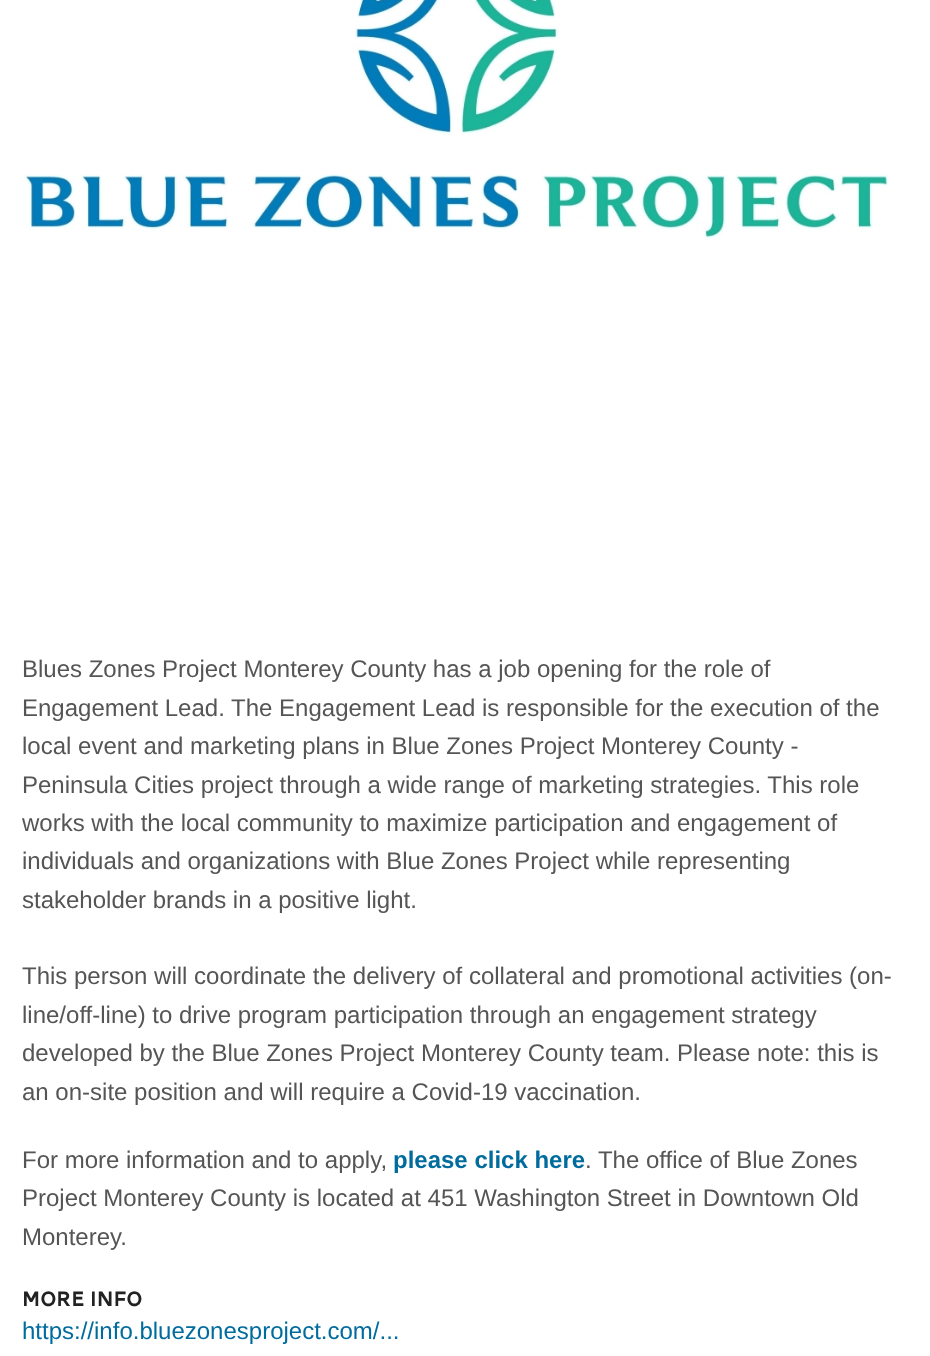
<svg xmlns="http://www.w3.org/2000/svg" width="930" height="1356">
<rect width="100%" height="100%" fill="#fff"/>
<image x="24" y="0" width="865" height="239" href="media/1.png"/>
<text x="22" y="677" style="font-family:Liberation Sans;font-size:24px;fill:#555">Blues Zones Project Monterey County has a job opening for the role of</text>
<text x="22" y="716" style="font-family:Liberation Sans;font-size:24px;fill:#555">Engagement Lead. The Engagement Lead is responsible for the execution of the</text>
<text x="22" y="754" style="font-family:Liberation Sans;font-size:24px;fill:#555">local event and marketing plans in Blue Zones Project Monterey County -</text>
<text x="22" y="793" style="font-family:Liberation Sans;font-size:24px;fill:#555">Peninsula Cities project through a wide range of marketing strategies. This role</text>
<text x="22" y="831" style="font-family:Liberation Sans;font-size:24px;fill:#555">works with the local community to maximize participation and engagement of</text>
<text x="22" y="869" style="font-family:Liberation Sans;font-size:24px;fill:#555">individuals and organizations with Blue Zones Project while representing</text>
<text x="22" y="908" style="font-family:Liberation Sans;font-size:24px;fill:#555">stakeholder brands in a positive light.</text>
<text x="22" y="984" style="font-family:Liberation Sans;font-size:24px;fill:#555">This person will coordinate the delivery of collateral and promotional activities (on-</text>
<text x="22" y="1023" style="font-family:Liberation Sans;font-size:24px;fill:#555">line/off-line) to drive program participation through an engagement strategy</text>
<text x="22" y="1061" style="font-family:Liberation Sans;font-size:24px;fill:#555">developed by the Blue Zones Project Monterey County team. Please note: this is</text>
<text x="22" y="1100" style="font-family:Liberation Sans;font-size:24px;fill:#555">an on-site position and will require a Covid-19 vaccination.</text>
<text x="22" y="1168" style="font-family:Liberation Sans;font-size:24px;fill:#555">For more information and to apply,</text>
<text x="393" y="1168" style="font-family:Liberation Sans;font-size:24px;font-weight:bold;fill:#006c9e">please click here</text>
<text x="585" y="1168" style="font-family:Liberation Sans;font-size:24px;fill:#555">. The office of Blue Zones</text>
<text x="22" y="1206" style="font-family:Liberation Sans;font-size:24px;fill:#555">Project Monterey County is located at 451 Washington Street in Downtown Old</text>
<text x="22" y="1245" style="font-family:Liberation Sans;font-size:24px;fill:#555">Monterey.</text>
<text x="22" y="1306" style="font-family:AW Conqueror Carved;font-size:21.5px;font-weight:500;fill:#222">More Info</text>
<text x="22" y="1339" style="font-family:Liberation Sans;font-size:24px;fill:#006c9e">https://info.bluezonesproject.com/...</text>
</svg>
